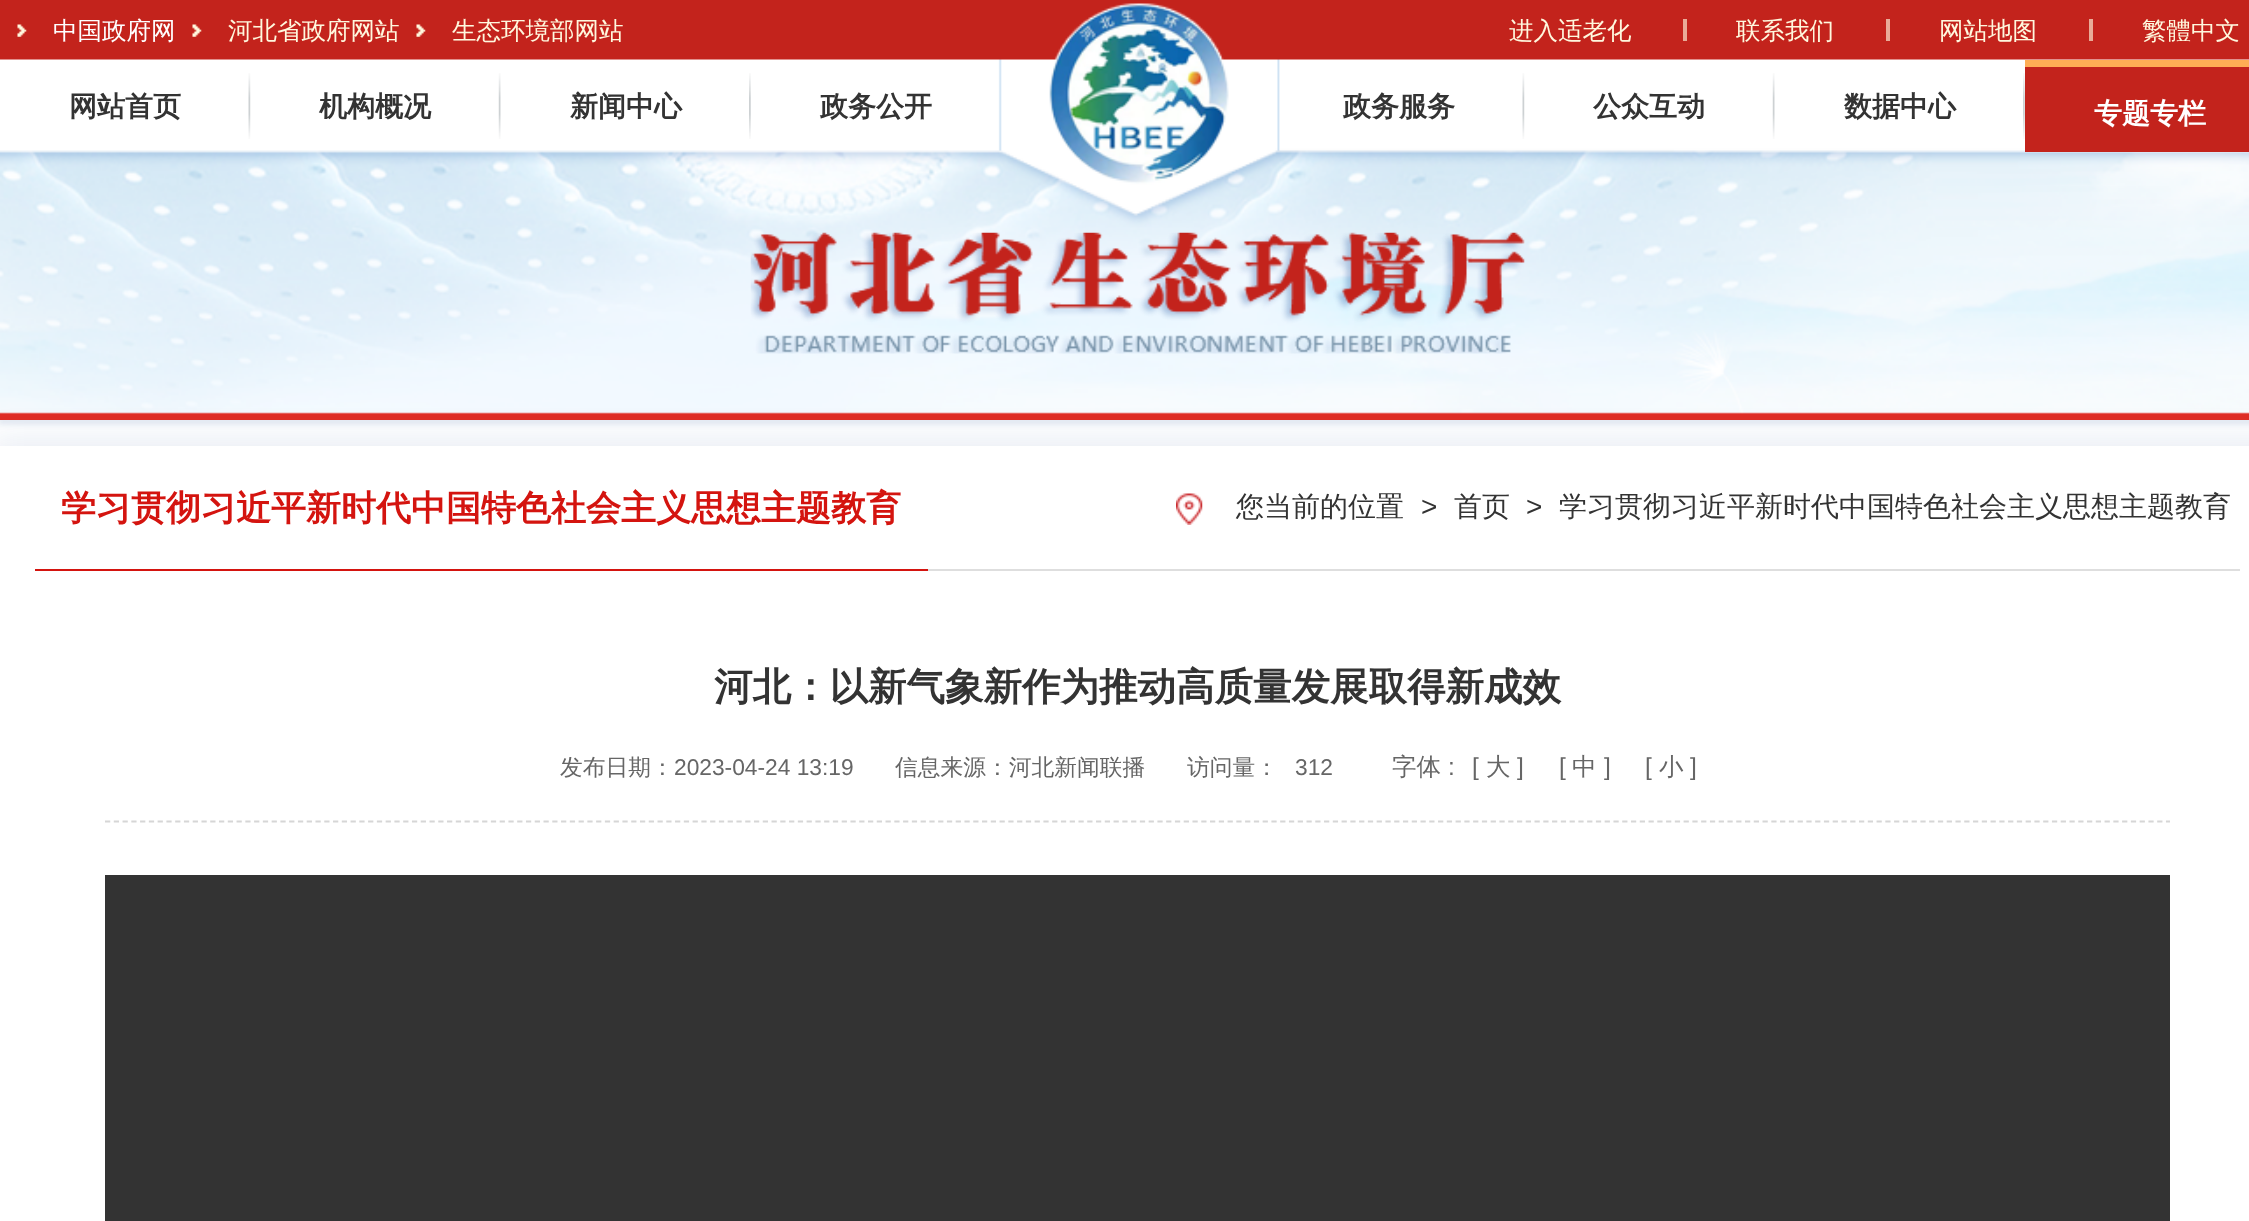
<svg xmlns="http://www.w3.org/2000/svg" width="2249" height="1221">
<rect width="100%" height="100%" fill="#fff"/>
<rect x="-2" y="2" width="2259" height="423" fill="#0c3f851a" filter="blur(2.5px)"/>
<image x="0" y="0" width="2249" height="420" href="media/1.png"/>
<image x="17" y="24" width="10" height="13" href="media/2.png"/>
<text x="53" y="39" style="font-family:WenQuanYi Zen Hei;font-size:24.5px;font-weight:500;fill:#fff">中国政府网</text>
<image x="192" y="24" width="10" height="13" href="media/3.png"/>
<text x="228" y="39" style="font-family:WenQuanYi Zen Hei;font-size:24.5px;font-weight:500;fill:#fff8de">河北省政府网站</text>
<image x="416" y="24" width="10" height="13" href="media/3.png"/>
<text x="452" y="39" style="font-family:WenQuanYi Zen Hei;font-size:24.5px;font-weight:500;fill:#fff8de">生态环境部网站</text>
<text x="1509" y="39" style="font-family:WenQuanYi Zen Hei;font-size:24.5px;font-weight:500;fill:#fff8de">进入适老化</text>
<rect x="1683" y="19" width="4" height="22" fill="#e9ab98"/>
<text x="1736" y="39" style="font-family:WenQuanYi Zen Hei;font-size:24.5px;font-weight:500;fill:#fff8de">联系我们</text>
<rect x="1886" y="19" width="4" height="22" fill="#e9ab98"/>
<text x="1939" y="39" style="font-family:WenQuanYi Zen Hei;font-size:24.5px;font-weight:500;fill:#fff8de">网站地图</text>
<rect x="2089" y="19" width="4" height="22" fill="#e9ab98"/>
<text x="2142" y="39" style="font-family:WenQuanYi Zen Hei;font-size:24.5px;font-weight:500;fill:#fff8de">繁體中文</text>
<image x="248" y="73" width="3" height="66" href="media/4.png"/>
<text x="69" y="116" style="font-family:WenQuanYi Zen Hei;font-size:28px;font-weight:bold;fill:#333">网站首页</text>
<image x="498" y="73" width="3" height="66" href="media/5.png"/>
<text x="319" y="116" style="font-family:WenQuanYi Zen Hei;font-size:28px;font-weight:bold;fill:#333">机构概况</text>
<image x="749" y="73" width="2" height="66" href="media/6.png"/>
<text x="570" y="116" style="font-family:WenQuanYi Zen Hei;font-size:28px;font-weight:bold;fill:#333">新闻中心</text>
<text x="820" y="116" style="font-family:WenQuanYi Zen Hei;font-size:28px;font-weight:bold;fill:#333">政务公开</text>
<image x="1522" y="73" width="3" height="66" href="media/4.png"/>
<text x="1343" y="116" style="font-family:WenQuanYi Zen Hei;font-size:28px;font-weight:bold;fill:#333">政务服务</text>
<image x="1772" y="73" width="3" height="66" href="media/5.png"/>
<text x="1593" y="116" style="font-family:WenQuanYi Zen Hei;font-size:28px;font-weight:bold;fill:#333">公众互动</text>
<image x="2023" y="73" width="2" height="66" href="media/6.png"/>
<text x="1844" y="116" style="font-family:WenQuanYi Zen Hei;font-size:28px;font-weight:bold;fill:#333">数据中心</text>
<rect x="2025" y="67" width="224" height="85" fill="#c3231c"/>
<rect x="2025" y="60" width="224" height="7" fill="#ffad55"/>
<text x="2094" y="123" style="font-family:WenQuanYi Zen Hei;font-size:28px;font-weight:bold;fill:#fff">专题专栏</text>
<image x="750" y="232" width="775" height="122" href="media/7.png"/>
<rect x="-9" y="441" width="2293" height="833" fill="#0c3f851a" filter="blur(17.5px)"/>
<rect y="446" width="2249" height="775" fill="#fff"/>
<rect x="928" y="569" width="1312" height="2" fill="#dedede"/>
<rect x="35" y="569" width="893" height="2" fill="#d4140f"/>
<text x="61" y="520" style="font-family:WenQuanYi Zen Hei;font-size:35px;font-weight:bold;fill:#d4140f">学习贯彻习近平新时代中国特色社会主义思想主题教育</text>
<image x="1176" y="493" width="27" height="32" href="media/8.png"/>
<text x="1236" y="516" style="font-family:WenQuanYi Zen Hei;font-size:28px;font-weight:500;fill:#333">您当前的位置</text>
<text x="1421" y="516" style="font-family:Liberation Sans;font-size:28px;fill:#333">&gt;</text>
<text x="1454" y="516" style="font-family:WenQuanYi Zen Hei;font-size:28px;font-weight:500;fill:#333">首页</text>
<text x="1526" y="516" style="font-family:Liberation Sans;font-size:28px;fill:#333">&gt;</text>
<text x="1559" y="516" style="font-family:WenQuanYi Zen Hei;font-size:28px;font-weight:500;fill:#333">学习贯彻习近平新时代中国特色社会主义思想主题教育</text>
<text x="714" y="700" style="font-family:WenQuanYi Zen Hei;font-size:38.5px;font-weight:bold;fill:#333">河北：以新气象新作为推动高质量发展取得新成效</text>
<path d="M105 821.5h2065" fill="none" stroke="#d6d6d6" stroke-width="1.8" stroke-dasharray="5.25 3.52"/>
<text x="560" y="775" style="font-family:WenQuanYi Zen Hei;font-size:22.75px;font-weight:500;fill:#666">发布日期：</text>
<text x="674" y="775" style="font-family:Liberation Sans;font-size:22.75px;fill:#666">2023-04-24 13:19</text>
<text x="895" y="775" style="font-family:WenQuanYi Zen Hei;font-size:22.75px;font-weight:500;fill:#666">信息来源：河北新闻联播</text>
<text x="1187" y="775" style="font-family:WenQuanYi Zen Hei;font-size:22.75px;font-weight:500;fill:#666">访问量：</text>
<text x="1295" y="775" style="font-family:Liberation Sans;font-size:22.75px;fill:#666">312</text>
<text x="1392" y="775" style="font-family:WenQuanYi Zen Hei;font-size:24.5px;font-weight:500;fill:#666">字体</text>
<text x="1448" y="775" style="font-family:Liberation Sans;font-size:24.5px;fill:#666">:</text>
<text x="1472" y="775" style="font-family:Liberation Sans;font-size:24.5px;fill:#666">[</text>
<text x="1486" y="775" style="font-family:WenQuanYi Zen Hei;font-size:24.5px;font-weight:500;fill:#666">大</text>
<text x="1517" y="775" style="font-family:Liberation Sans;font-size:24.5px;fill:#666">]</text>
<text x="1559" y="775" style="font-family:Liberation Sans;font-size:24.5px;fill:#666">[</text>
<text x="1572" y="775" style="font-family:WenQuanYi Zen Hei;font-size:24.5px;font-weight:500;fill:#666">中</text>
<text x="1604" y="775" style="font-family:Liberation Sans;font-size:24.5px;fill:#666">]</text>
<text x="1645" y="775" style="font-family:Liberation Sans;font-size:24.5px;fill:#666">[</text>
<text x="1659" y="775" style="font-family:WenQuanYi Zen Hei;font-size:24.5px;font-weight:500;fill:#666">小</text>
<text x="1690" y="775" style="font-family:Liberation Sans;font-size:24.5px;fill:#666">]</text>
<rect x="105" y="875" width="2065" height="346" fill="#333"/>
</svg>
